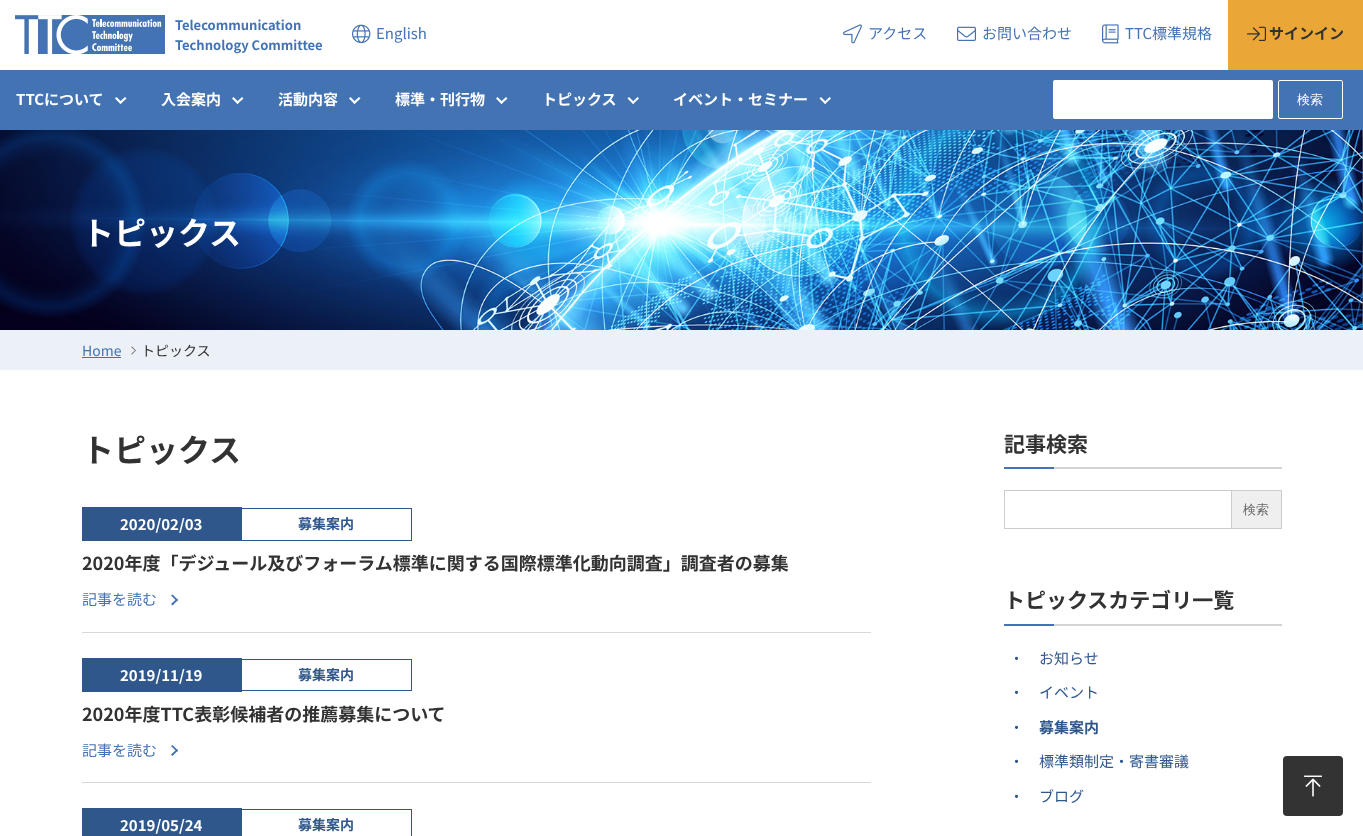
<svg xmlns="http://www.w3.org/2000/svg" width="1363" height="836">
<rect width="100%" height="100%" fill="#fff"/>
<image x="15" y="15" width="150" height="39" href="media/1.png"/>
<text x="175" y="30" style="font-family:Noto Sans JP;font-size:13px;font-weight:bold;fill:#4373b3">Telecommunication</text>
<text x="175" y="50" style="font-family:Noto Sans JP;font-size:13px;font-weight:bold;fill:#4373b3">Technology Committee</text>
<image x="352" y="24" width="19" height="20" href="media/2.png"/>
<text x="376" y="39" style="font-family:Noto Sans JP;font-size:15px;fill:#4373b3">English</text>
<image x="843" y="24" width="19" height="20" href="media/3.png"/>
<text x="868" y="39" style="font-family:Noto Sans JP;font-size:15px;fill:#4373b3">アクセス</text>
<image x="957" y="26" width="19" height="15" href="media/4.png"/>
<text x="982" y="39" style="font-family:Noto Sans JP;font-size:15px;fill:#4373b3">お問い合わせ</text>
<image x="1102" y="24" width="17" height="20" href="media/5.png"/>
<text x="1125" y="39" style="font-family:Noto Sans JP;font-size:15px;fill:#4373b3">TTC標準規格</text>
<rect x="1228" width="135" height="70" fill="#eaa738"/>
<image x="1247" y="26" width="19" height="15" href="media/6.png"/>
<text x="1269" y="39" style="font-family:Noto Sans JP;font-size:15px;font-weight:bold;fill:#323232">サインイン</text>
<rect y="70" width="1363" height="60" fill="#4373b3"/>
<text x="16" y="105" style="font-family:Noto Sans JP;font-size:15px;font-weight:bold;fill:#fff">TTCについて</text>
<path d="M126.5 98.5l-6 5.5l-1.5-1.5l6-5.5z" fill="#fff"/>
<path d="M122 102.5l-1.5 1.5l-5.5-5.5l1.5-1.5z" fill="#fff"/>
<text x="161" y="105" style="font-family:Noto Sans JP;font-size:15px;font-weight:bold;fill:#fff">入会案内</text>
<path d="M243.5 98.5l-6 5.5l-1.5-1.5l6-5.5z" fill="#fff"/>
<path d="M239 102.5l-1.5 1.5l-5.5-5.5l1.5-1.5z" fill="#fff"/>
<text x="278" y="105" style="font-family:Noto Sans JP;font-size:15px;font-weight:bold;fill:#fff">活動内容</text>
<path d="M360.5 98.5l-6 5.5l-1.5-1.5l6-5.5z" fill="#fff"/>
<path d="M356 102.5l-1.5 1.5l-5.5-5.5l1.5-1.5z" fill="#fff"/>
<text x="395" y="105" style="font-family:Noto Sans JP;font-size:15px;font-weight:bold;fill:#fff">標準・刊行物</text>
<path d="M507.5 98.5l-6 5.5l-1.5-1.5l6-5.5z" fill="#fff"/>
<path d="M503 102.5l-1.5 1.5l-5.5-5.5l1.5-1.5z" fill="#fff"/>
<text x="542" y="105" style="font-family:Noto Sans JP;font-size:15px;font-weight:bold;fill:#fff">トピックス</text>
<path d="M639 98.5l-6 5.5l-1-1.5l5.5-5.5z" fill="#fff"/>
<path d="M634.5 102.5l-1.5 1.5l-5.5-5.5l1.5-1.5z" fill="#fff"/>
<text x="673" y="105" style="font-family:Noto Sans JP;font-size:15px;font-weight:bold;fill:#fff">イベント・セミナー</text>
<path d="M831 98.5l-6 5.5l-1-1.5l5.5-5.5z" fill="#fff"/>
<path d="M826.5 102.5l-1.5 1.5l-5.5-5.5l1.5-1.5z" fill="#fff"/>
<rect x="1053" y="80" width="220" height="39" rx="2" fill="#fff"/>
<rect x="1278.5" y="80.5" width="64" height="38" rx="1.5" fill="none" stroke="#fff"/>
<text x="1297" y="104" style="font-family:WenQuanYi Zen Hei;font-size:13px;font-weight:500;fill:#fff">検索</text>
<image x="0" y="130" width="1363" height="200" href="media/7.png"/>
<text x="82" y="245" style="font-family:Noto Sans JP;font-size:32px;font-weight:bold;fill:#fff">トピックス</text>
<rect y="330" width="1363" height="40" fill="#ecf1f7"/>
<text x="82" y="356" style="font-family:Noto Sans JP;font-size:14px;fill:#4373b3">Home</text>
<rect x="82" y="357" width="39" height="1" fill="#4373b3"/>
<path d="M132 346.5l4 4l-.5 .5l-4.5-4z" fill="#727272"/>
<path d="M135.5 350l.5 .5l-4 4l-1-.5z" fill="#727272"/>
<text x="141" y="356" style="font-family:Noto Sans JP;font-size:14px;fill:#323232">トピックス</text>
<text x="82" y="462" style="font-family:Noto Sans JP;font-size:32px;font-weight:bold;fill:#323232">トピックス</text>
<rect x="82" y="632" width="789" height="1" fill="#d8d8d8"/>
<rect x="82" y="507" width="160" height="34" fill="#2f578c"/>
<text x="120" y="530" style="font-family:Noto Sans JP;font-size:15px;font-weight:bold;fill:#fff">2020/02/03</text>
<rect x="242" y="508" width="170" height="1" fill="#2f578c"/>
<rect x="411" y="508" width="1" height="33" fill="#2f578c"/>
<rect x="242" y="540" width="170" height="1" fill="#2f578c"/>
<text x="298" y="529" style="font-family:Noto Sans JP;font-size:14px;font-weight:bold;fill:#2f578c">募集案内</text>
<text x="82" y="570" style="font-family:Noto Sans JP;font-size:18px;font-weight:bold;fill:#323232">2020年度「デジュール及びフォーラム標準に関する国際標準化動向調査」調査者の募集</text>
<text x="82" y="605" style="font-family:Noto Sans JP;font-size:15px;fill:#4373b3">記事を読む</text>
<path d="M172.5 594.5l5.5 5.5l-1 1.5l-6-6z" fill="#4373b3"/>
<path d="M177 598.5l1 1.5l-5.5 5.5l-1.5-1.5z" fill="#4373b3"/>
<rect x="82" y="782" width="789" height="1" fill="#d8d8d8"/>
<rect x="82" y="658" width="160" height="34" fill="#2f578c"/>
<text x="120" y="681" style="font-family:Noto Sans JP;font-size:15px;font-weight:bold;fill:#fff">2019/11/19</text>
<rect x="242" y="659" width="170" height="1" fill="#2f578c"/>
<rect x="411" y="659" width="1" height="32" fill="#2f578c"/>
<rect x="242" y="690" width="170" height="1" fill="#2f578c"/>
<text x="298" y="680" style="font-family:Noto Sans JP;font-size:14px;font-weight:bold;fill:#2f578c">募集案内</text>
<text x="82" y="721" style="font-family:Noto Sans JP;font-size:18px;font-weight:bold;fill:#323232">2020年度TTC表彰候補者の推薦募集について</text>
<text x="82" y="756" style="font-family:Noto Sans JP;font-size:15px;fill:#4373b3">記事を読む</text>
<path d="M172.5 745l5.5 5.5l-1 1.5l-6-6z" fill="#4373b3"/>
<path d="M177 749l1 1.5l-5.5 5.5l-1.5-1.5z" fill="#4373b3"/>
<rect x="82" y="808" width="160" height="28" fill="#2f578c"/>
<text x="120" y="831" style="font-family:Noto Sans JP;font-size:15px;font-weight:bold;fill:#fff">2019/05/24</text>
<rect x="242" y="809" width="170" height="1" fill="#2f578c"/>
<rect x="411" y="809" width="1" height="27" fill="#2f578c"/>
<text x="298" y="830" style="font-family:Noto Sans JP;font-size:14px;font-weight:bold;fill:#2f578c">募集案内</text>
<text x="1004" y="452" style="font-family:Noto Sans JP;font-size:21px;font-weight:bold;fill:#323232">記事検索</text>
<rect x="1004" y="467" width="50" height="2" fill="#4373b3"/>
<rect x="1054" y="467" width="228" height="2" fill="#d4d4d4"/>
<rect x="1004.5" y="490.5" width="277" height="38" fill="none" stroke="#ccc"/>
<rect x="1231" y="491" width="1" height="37" fill="#ccc"/>
<rect x="1232" y="491" width="49" height="37" fill="#efefef"/>
<text x="1243" y="514" style="font-family:WenQuanYi Zen Hei;font-size:13px;font-weight:500;fill:#676767">検索</text>
<text x="1004" y="608" style="font-family:Noto Sans JP;font-size:21px;font-weight:bold;fill:#323232">トピックスカテゴリ一覧</text>
<rect x="1004" y="624" width="50" height="2" fill="#4373b3"/>
<rect x="1054" y="624" width="228" height="2" fill="#d4d4d4"/>
<text x="1009" y="664" style="font-family:Noto Sans JP;font-size:15px;fill:#2f578c">・</text>
<text x="1039" y="664" style="font-family:Noto Sans JP;font-size:15px;fill:#2f578c">お知らせ</text>
<text x="1009" y="698" style="font-family:Noto Sans JP;font-size:15px;fill:#2f578c">・</text>
<text x="1039" y="698" style="font-family:Noto Sans JP;font-size:15px;fill:#2f578c">イベント</text>
<text x="1009" y="733" style="font-family:Noto Sans JP;font-size:15px;fill:#2f578c">・</text>
<text x="1039" y="733" style="font-family:Noto Sans JP;font-size:15px;font-weight:bold;fill:#2f578c">募集案内</text>
<text x="1009" y="767" style="font-family:Noto Sans JP;font-size:15px;fill:#2f578c">・</text>
<text x="1039" y="767" style="font-family:Noto Sans JP;font-size:15px;fill:#2f578c">標準類制定・寄書審議</text>
<text x="1009" y="802" style="font-family:Noto Sans JP;font-size:15px;fill:#2f578c">・</text>
<text x="1039" y="802" style="font-family:Noto Sans JP;font-size:15px;fill:#2f578c">ブログ</text>
<rect x="1283" y="756" width="60" height="60" rx="4" fill="#333"/>
<image x="1304" y="775" width="18" height="22" href="media/8.png"/>
</svg>
